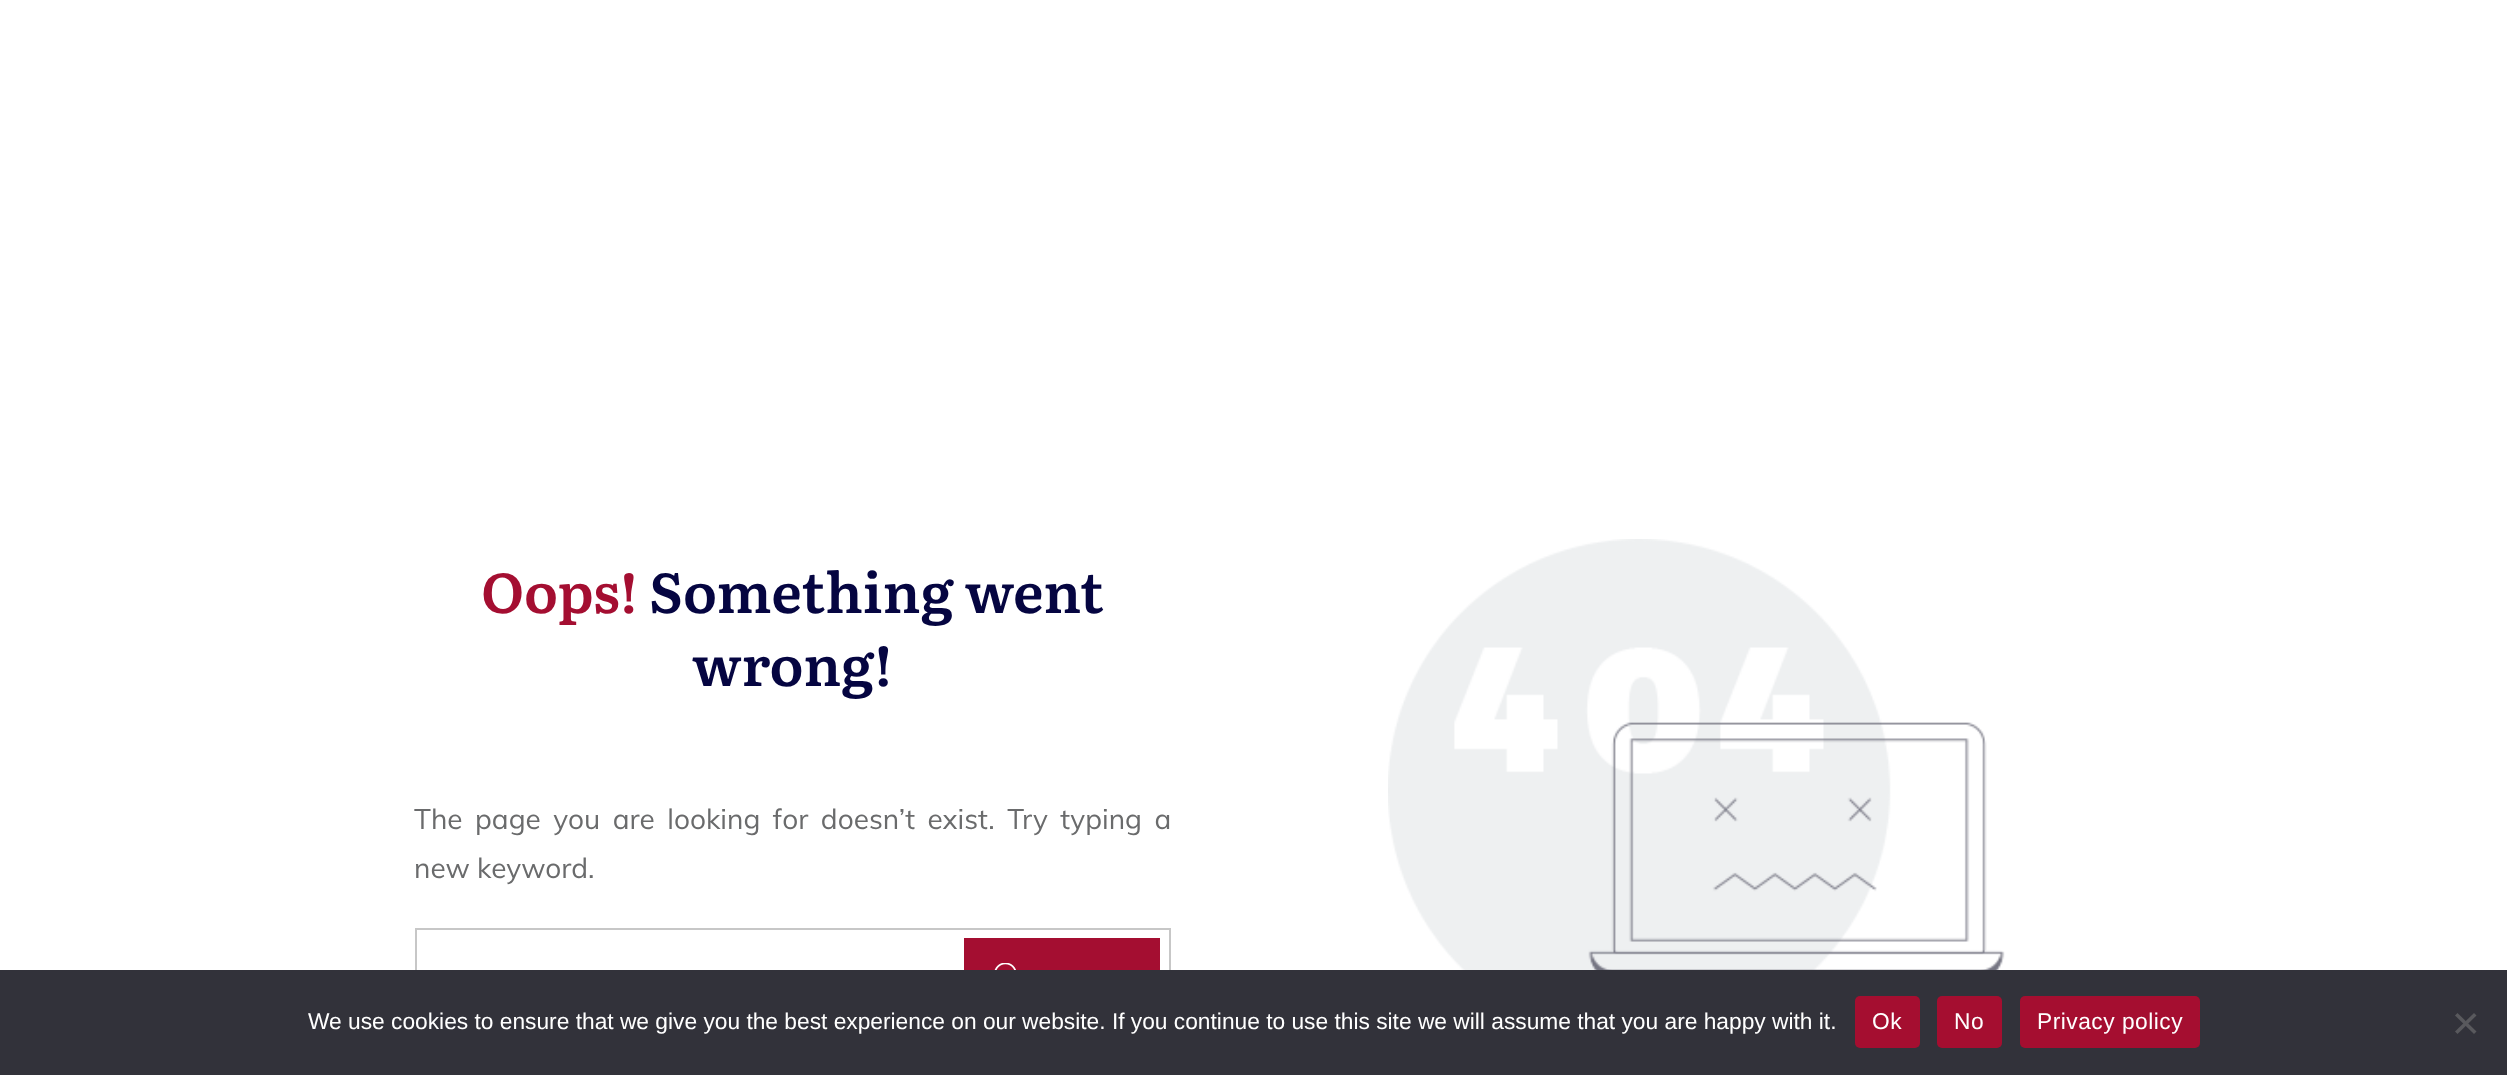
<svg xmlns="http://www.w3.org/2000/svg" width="2507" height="1075">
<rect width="100%" height="100%" fill="#fff"/>
<text x="481" y="613" style="font-family:Literata;font-size:56px;font-weight:600;fill:#a40e31">Oops!</text>
<text x="649" y="613" style="font-family:Literata;font-size:56px;font-weight:600;fill:#050541">Something went</text>
<text x="692" y="686" style="font-family:Literata;font-size:56px;font-weight:600;fill:#050541">wrong!</text>
<text x="414" y="829" word-spacing="5.25" style="font-family:Muli;font-size:28px;fill:#6a6b6c">The page you are looking for doesn’t exist. Try typing a</text>
<text x="414" y="878" style="font-family:Muli;font-size:28px;fill:#6a6b6c">new keyword.</text>
<rect x="416" y="929" width="754" height="96" fill="none" stroke="#c7c7c7" stroke-width="2"/>
<rect x="964" y="938" width="196" height="32" fill="#a40e31"/>
<image x="994" y="963" width="22" height="7" href="media/1.png"/>
<image x="1388" y="539" width="617" height="431" href="media/2.png"/>
<rect y="970" width="2507" height="105" fill="#32323a"/>
<text x="308" y="1029" style="font-family:Liberation Sans;font-size:22.75px;fill:#fff">We use cookies to ensure that we give you the best experience on our website. If you continue to use this site we will assume that you are happy with it.</text>
<rect x="1855" y="996" width="65" height="52" rx="5" fill="#a50e30"/>
<text x="1872" y="1029" style="font-family:Liberation Sans;font-size:22.75px;letter-spacing:0.5px;fill:#fff">Ok</text>
<rect x="1937" y="996" width="65" height="52" rx="5" fill="#a50e30"/>
<text x="1954" y="1029" style="font-family:Liberation Sans;font-size:22.75px;letter-spacing:0.5px;fill:#fff">No</text>
<rect x="2020" y="996" width="180" height="52" rx="5" fill="#a50e30"/>
<text x="2037" y="1029" style="font-family:Liberation Sans;font-size:22.75px;letter-spacing:0.5px;fill:#fff">Privacy policy</text>
<path d="M2474 1013l2.5 2.5l-19 18.5l-2.5-2.5z" fill="#59595d"/>
<path d="M2455 1015.5l2.5-2.5l19 18.5l-2.5 2.5z" fill="#59595d"/>
</svg>
